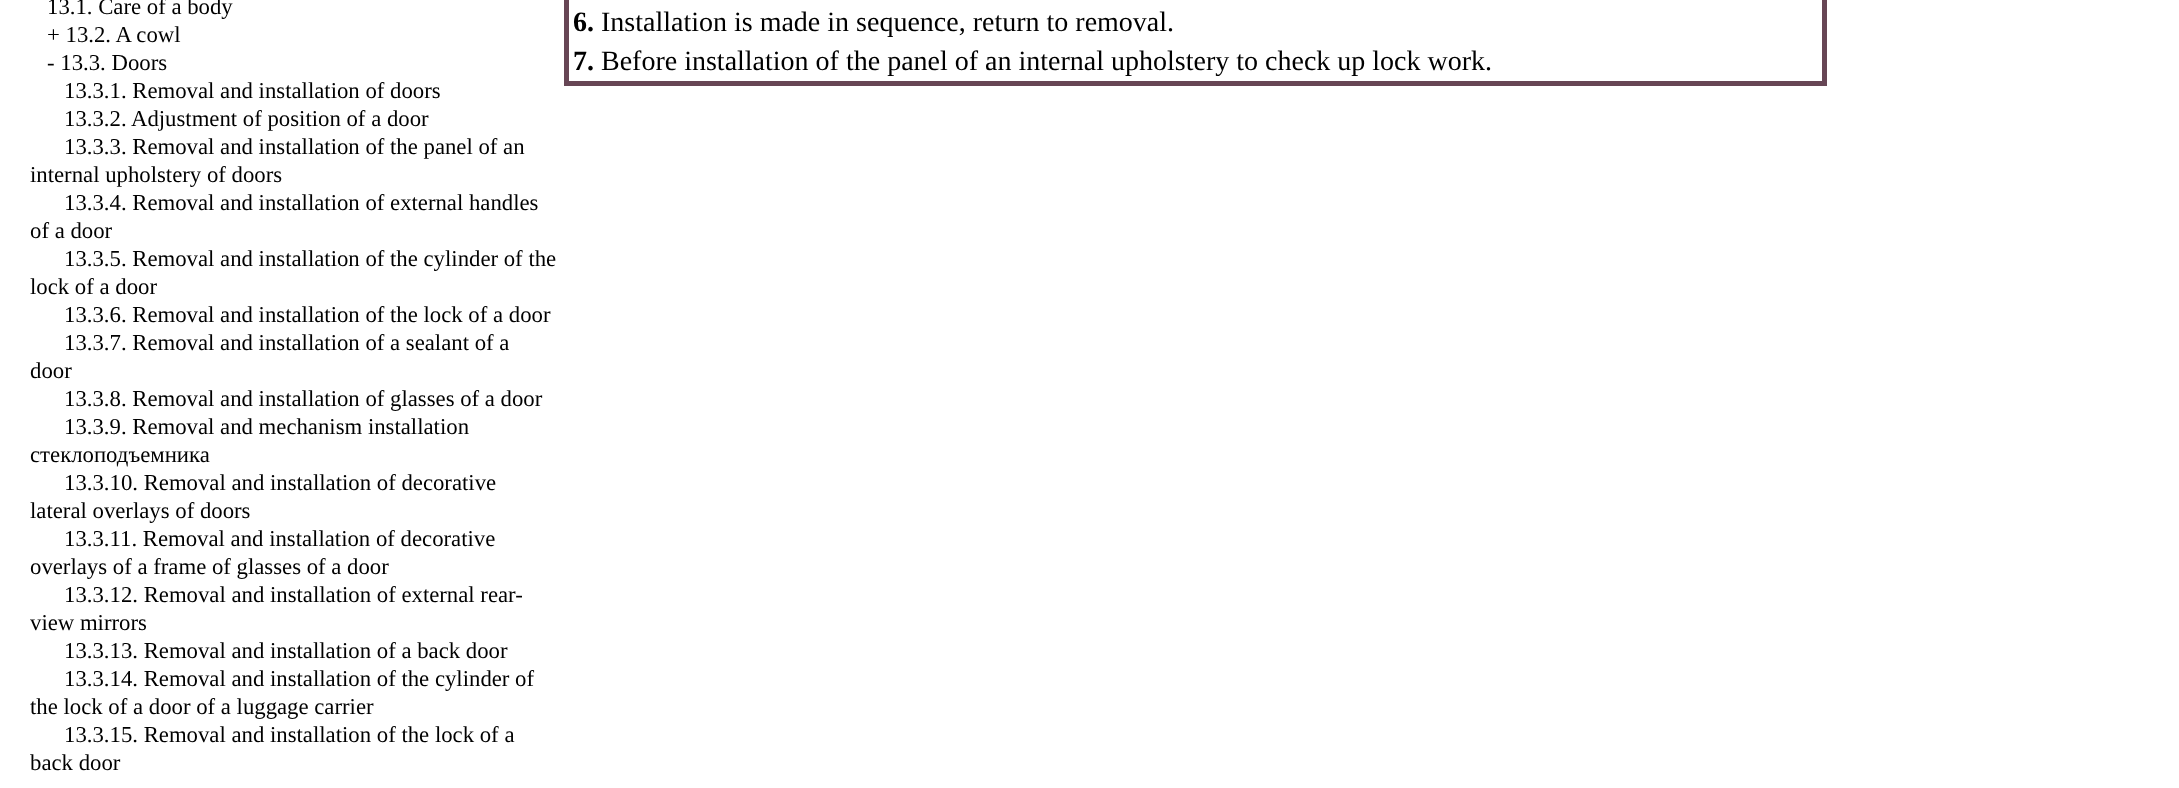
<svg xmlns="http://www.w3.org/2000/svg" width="2179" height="788">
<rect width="100%" height="100%" fill="#fff"/>
<text x="47" y="14" style="font-family:Liberation Serif;font-size:22.75px;fill:#000">13.1. Care of a body</text>
<text x="47" y="42" style="font-family:Liberation Serif;font-size:22.75px;fill:#000">+ 13.2. A cowl</text>
<text x="47" y="70" style="font-family:Liberation Serif;font-size:22.75px;fill:#000">- 13.3. Doors</text>
<text x="64" y="98" style="font-family:Liberation Serif;font-size:22.75px;fill:#000">13.3.1. Removal and installation of doors</text>
<text x="64" y="126" style="font-family:Liberation Serif;font-size:22.75px;fill:#000">13.3.2. Adjustment of position of a door</text>
<text x="64" y="154" style="font-family:Liberation Serif;font-size:22.75px;fill:#000">13.3.3. Removal and installation of the panel of an</text>
<text x="30" y="182" style="font-family:Liberation Serif;font-size:22.75px;fill:#000">internal upholstery of doors</text>
<text x="64" y="210" style="font-family:Liberation Serif;font-size:22.75px;fill:#000">13.3.4. Removal and installation of external handles</text>
<text x="30" y="238" style="font-family:Liberation Serif;font-size:22.75px;fill:#000">of a door</text>
<text x="64" y="266" style="font-family:Liberation Serif;font-size:22.75px;fill:#000">13.3.5. Removal and installation of the cylinder of the</text>
<text x="30" y="294" style="font-family:Liberation Serif;font-size:22.75px;fill:#000">lock of a door</text>
<text x="64" y="322" style="font-family:Liberation Serif;font-size:22.75px;fill:#000">13.3.6. Removal and installation of the lock of a door</text>
<text x="64" y="350" style="font-family:Liberation Serif;font-size:22.75px;fill:#000">13.3.7. Removal and installation of a sealant of a</text>
<text x="30" y="378" style="font-family:Liberation Serif;font-size:22.75px;fill:#000">door</text>
<text x="64" y="406" style="font-family:Liberation Serif;font-size:22.75px;fill:#000">13.3.8. Removal and installation of glasses of a door</text>
<text x="64" y="434" style="font-family:Liberation Serif;font-size:22.75px;fill:#000">13.3.9. Removal and mechanism installation</text>
<text x="30" y="462" style="font-family:Liberation Serif;font-size:22.75px;fill:#000">стеклоподъемника</text>
<text x="64" y="490" style="font-family:Liberation Serif;font-size:22.75px;fill:#000">13.3.10. Removal and installation of decorative</text>
<text x="30" y="518" style="font-family:Liberation Serif;font-size:22.75px;fill:#000">lateral overlays of doors</text>
<text x="64" y="546" style="font-family:Liberation Serif;font-size:22.75px;fill:#000">13.3.11. Removal and installation of decorative</text>
<text x="30" y="574" style="font-family:Liberation Serif;font-size:22.75px;fill:#000">overlays of a frame of glasses of a door</text>
<text x="64" y="602" style="font-family:Liberation Serif;font-size:22.75px;fill:#000">13.3.12. Removal and installation of external rear-</text>
<text x="30" y="630" style="font-family:Liberation Serif;font-size:22.75px;fill:#000">view mirrors</text>
<text x="64" y="658" style="font-family:Liberation Serif;font-size:22.75px;fill:#000">13.3.13. Removal and installation of a back door</text>
<text x="64" y="686" style="font-family:Liberation Serif;font-size:22.75px;fill:#000">13.3.14. Removal and installation of the cylinder of</text>
<text x="30" y="714" style="font-family:Liberation Serif;font-size:22.75px;fill:#000">the lock of a door of a luggage carrier</text>
<text x="64" y="742" style="font-family:Liberation Serif;font-size:22.75px;fill:#000">13.3.15. Removal and installation of the lock of a</text>
<text x="30" y="770" style="font-family:Liberation Serif;font-size:22.75px;fill:#000">back door</text>
<rect x="564" width="1263" height="86" fill="#674655"/>
<rect x="569" width="1253" height="81" fill="#fff"/>
<text x="573" y="31" style="font-family:Liberation Serif;font-size:28px;font-weight:bold;fill:#000">6.</text>
<text x="601" y="31" style="font-family:Liberation Serif;font-size:28px;fill:#000">Installation is made in sequence, return to removal.</text>
<text x="573" y="70" style="font-family:Liberation Serif;font-size:28px;font-weight:bold;fill:#000">7.</text>
<text x="601" y="70" style="font-family:Liberation Serif;font-size:28px;fill:#000">Before installation of the panel of an internal upholstery to check up lock work.</text>
</svg>
